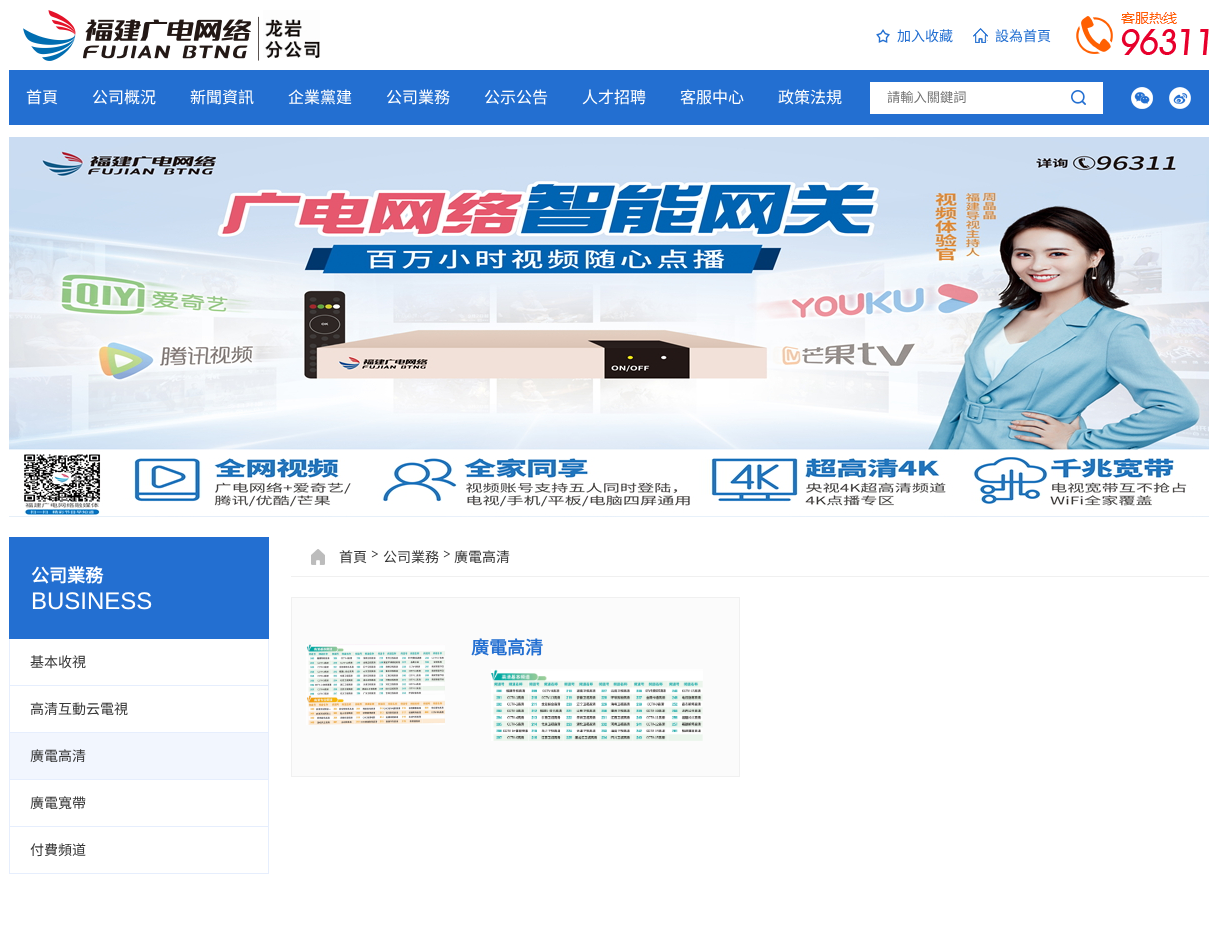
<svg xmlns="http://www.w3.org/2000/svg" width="1218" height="952">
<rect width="100%" height="100%" fill="#fff"/>
<image x="23" y="10" width="297" height="51" href="media/1.png"/>
<image x="876" y="29" width="14" height="14" href="media/2.png"/>
<text x="897" y="41" style="font-family:Noto Sans CJK SC;font-size:14px;fill:#236fd1">加入收藏</text>
<image x="973" y="28" width="15" height="15" href="media/3.png"/>
<text x="995" y="41" style="font-family:Noto Sans CJK SC;font-size:14px;fill:#236fd1">設為首頁</text>
<image x="1076" y="12" width="133" height="43" href="media/4.png"/>
<rect x="9" y="70" width="1200" height="55" fill="#236fd1"/>
<text x="26" y="103" style="font-family:Noto Sans CJK SC;font-size:16px;fill:#fff">首頁</text>
<text x="92" y="103" style="font-family:Noto Sans CJK SC;font-size:16px;fill:#fff">公司概況</text>
<text x="190" y="103" style="font-family:Noto Sans CJK SC;font-size:16px;fill:#fff">新聞資訊</text>
<text x="288" y="103" style="font-family:Noto Sans CJK SC;font-size:16px;fill:#fff">企業黨建</text>
<text x="386" y="103" style="font-family:Noto Sans CJK SC;font-size:16px;fill:#fff">公司業務</text>
<text x="484" y="103" style="font-family:Noto Sans CJK SC;font-size:16px;fill:#fff">公示公告</text>
<text x="582" y="103" style="font-family:Noto Sans CJK SC;font-size:16px;fill:#fff">人才招聘</text>
<text x="680" y="103" style="font-family:Noto Sans CJK SC;font-size:16px;fill:#fff">客服中心</text>
<text x="778" y="103" style="font-family:Noto Sans CJK SC;font-size:16px;fill:#fff">政策法規</text>
<rect x="870" y="82" width="233" height="32" fill="#fff"/>
<text x="887" y="102" style="font-family:Noto Sans CJK SC;font-size:13.25px;fill:#757575">請輸入關鍵詞</text>
<image x="1071" y="90" width="15" height="15" href="media/5.png"/>
<image x="1131" y="87" width="22" height="22" href="media/6.png"/>
<image x="1169" y="87" width="22" height="22" href="media/7.png"/>
<image x="9" y="137" width="1200" height="380" href="media/8.png"/>
<rect x="9" y="537" width="260" height="102" fill="#236fd1"/>
<text x="31" y="582" style="font-family:Noto Sans CJK SC;font-size:18px;font-weight:bold;fill:#fff">公司業務</text>
<text x="31" y="609" style="font-family:Liberation Sans;font-size:24px;fill:#fff">BUSINESS</text>
<rect x="268" y="639" width="1" height="235" fill="#e6eefd"/>
<rect x="9" y="639" width="1" height="235" fill="#e6eefd"/>
<rect x="10" y="685" width="258" height="1" fill="#e6eefd"/>
<text x="30" y="667" style="font-family:Noto Sans CJK SC;font-size:14px;fill:#373737">基本收視</text>
<rect x="10" y="732" width="258" height="1" fill="#e6eefd"/>
<text x="30" y="714" style="font-family:Noto Sans CJK SC;font-size:14px;fill:#373737">高清互動云電視</text>
<rect x="10" y="733" width="258" height="46" fill="#f2f6fe"/>
<rect x="10" y="779" width="258" height="1" fill="#e6eefd"/>
<text x="30" y="761" style="font-family:Noto Sans CJK SC;font-size:14px;fill:#373737">廣電高清</text>
<rect x="10" y="826" width="258" height="1" fill="#e6eefd"/>
<text x="30" y="808" style="font-family:Noto Sans CJK SC;font-size:14px;fill:#373737">廣電寬帶</text>
<rect x="10" y="873" width="258" height="1" fill="#e6eefd"/>
<text x="30" y="855" style="font-family:Noto Sans CJK SC;font-size:14px;fill:#373737">付費頻道</text>
<image x="311" y="549" width="14" height="16" href="media/9.png"/>
<rect x="291" y="576" width="918" height="1" fill="#f0f0f0"/>
<text x="339" y="562" style="font-family:Noto Sans CJK SC;font-size:14px;fill:#373737">首頁</text>
<text x="371" y="559" style="font-family:Noto Serif;font-size:14px;fill:#373737">&gt;</text>
<text x="383" y="562" style="font-family:Noto Sans CJK SC;font-size:14px;fill:#373737">公司業務</text>
<text x="443" y="559" style="font-family:Noto Serif;font-size:14px;fill:#373737">&gt;</text>
<text x="454" y="562" style="font-family:Noto Sans CJK SC;font-size:14px;fill:#373737">廣電高清</text>
<rect x="291.5" y="597.5" width="448" height="179" fill="#fbfbfb" stroke="#f0f0f0"/>
<image x="306" y="644" width="139" height="81" href="media/10.png"/>
<text x="471" y="654" style="font-family:Noto Sans CJK SC;font-size:18px;font-weight:bold;fill:#236fd1">廣電高清</text>
<image x="491" y="669" width="212" height="72" href="media/11.png"/>
</svg>
